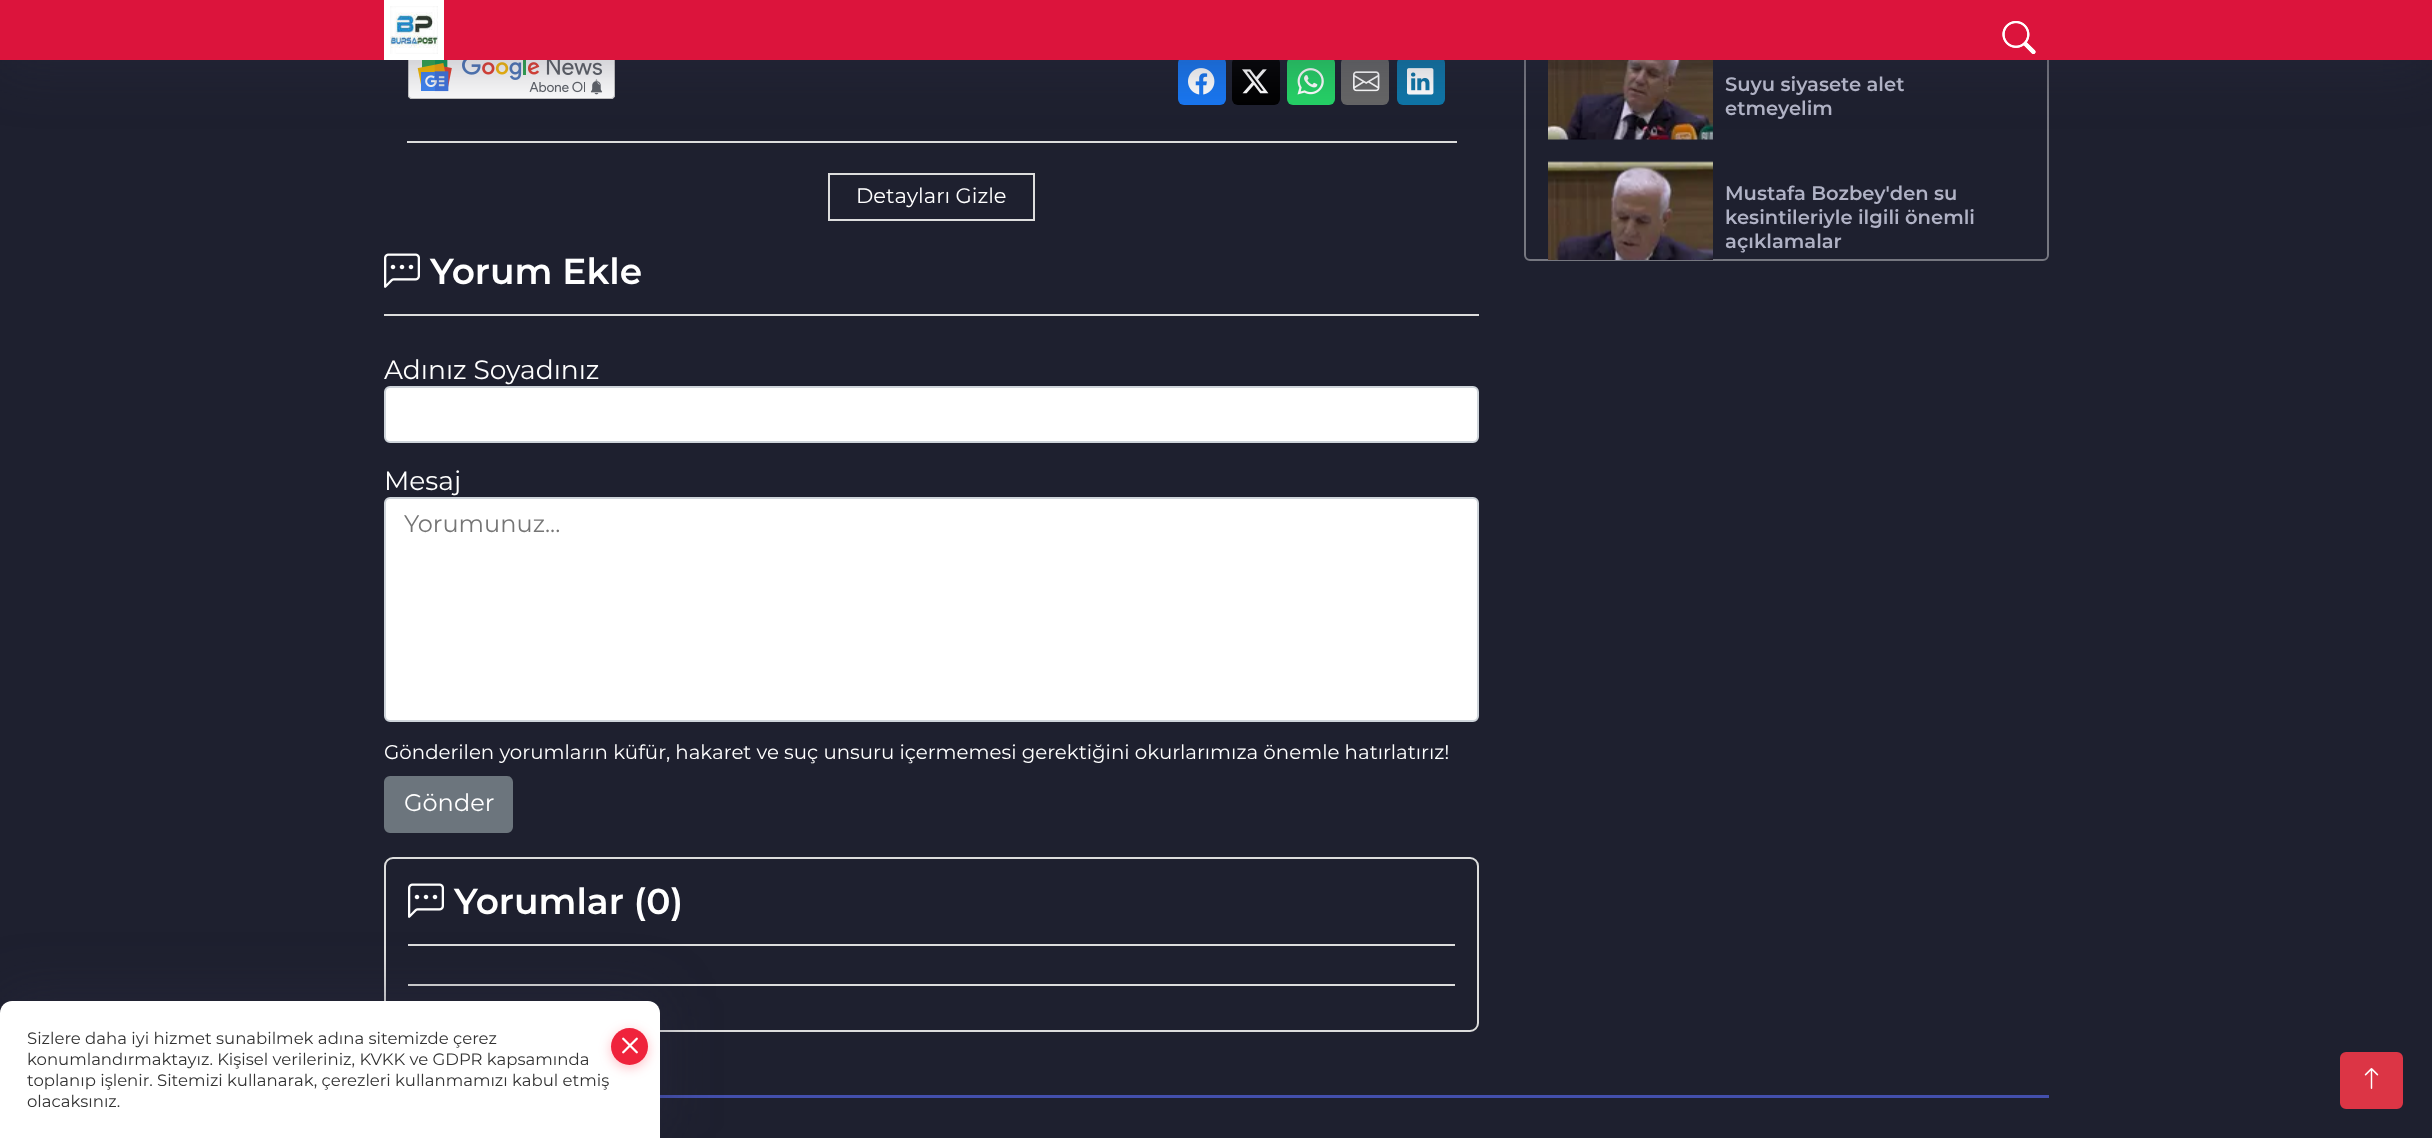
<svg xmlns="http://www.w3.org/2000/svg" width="2432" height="1138">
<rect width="100%" height="100%" fill="#1e202f"/>
<rect x="1525" y="-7" width="523" height="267" rx="5" fill="none" stroke="#767780" stroke-width="2"/>
<image x="1548" y="60" width="165" height="80" href="media/4.png"/>
<rect x="407" y="141" width="1050" height="2" fill="#ddd"/>
<image x="408" y="60" width="207" height="39" href="media/6.png"/>
<rect x="1178" y="57" width="48" height="48" rx="6" fill="#1877f2"/>
<image x="1188" y="68" width="27" height="27" href="media/7.png"/>
<rect x="1232" y="57" width="48" height="48" rx="6" fill="#000"/>
<image x="1242" y="69" width="27" height="25" href="media/8.png"/>
<rect x="1287" y="57" width="48" height="48" rx="6" fill="#25d366"/>
<image x="1297" y="68" width="27" height="27" href="media/9.png"/>
<rect x="1341" y="57" width="48" height="48" rx="6" fill="#666"/>
<image x="1353" y="71" width="27" height="21" href="media/10.png"/>
<rect x="1397" y="57" width="48" height="48" rx="6" fill="#0e76a8"/>
<image x="1407" y="68" width="27" height="27" href="media/11.png"/>
<rect y="5" width="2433" height="60" fill="#2b2d425c" filter="blur(28.5px)"/>
<rect width="2432" height="60" fill="#dc143c"/>
<image x="384" y="0" width="60" height="60" href="media/1.png"/>
<image x="2002" y="21" width="34" height="33" href="media/2.png"/>
<image x="2002" y="21" width="34" height="33" href="media/3.png"/>
<text x="1725" y="91" style="font-family:Montserrat;font-size:19.5px;font-weight:600;fill:#b0b2c5">Suyu siyasete alet</text>
<text x="1725" y="115" style="font-family:Montserrat;font-size:19.5px;font-weight:600;fill:#b0b2c5">etmeyelim</text>
<image x="1548" y="161" width="165" height="99" href="media/5.png"/>
<text x="1725" y="200" style="font-family:Montserrat;font-size:19.5px;font-weight:600;fill:#b0b2c5">Mustafa Bozbey'den su</text>
<text x="1725" y="224" style="font-family:Montserrat;font-size:19.5px;font-weight:600;fill:#b0b2c5">kesintileriyle ilgili önemli</text>
<text x="1725" y="248" style="font-family:Montserrat;font-size:19.5px;font-weight:600;fill:#b0b2c5">açıklamalar</text>
<rect x="829" y="174" width="205" height="46" fill="none" stroke="#ddd" stroke-width="2"/>
<text x="856" y="203" style="font-family:Montserrat;font-size:21px;fill:#fff">Detayları Gizle</text>
<rect x="384" y="314" width="1095" height="2" fill="#ddd"/>
<image x="384" y="253" width="36" height="35" href="media/12.png"/>
<text x="430" y="284" style="font-family:Montserrat;font-size:36px;font-weight:600;fill:#fff">Yorum Ekle</text>
<text x="384" y="379" style="font-family:Montserrat;font-size:26.5px;fill:#fff">Adınız Soyadınız</text>
<rect x="385" y="387" width="1093" height="55" rx="5" fill="#fff" stroke="#ced4da" stroke-width="2"/>
<text x="384" y="490" style="font-family:Montserrat;font-size:26.5px;fill:#fff">Mesaj</text>
<rect x="385" y="498" width="1093" height="223" rx="5" fill="#fff" stroke="#ced4da" stroke-width="2"/>
<text x="404" y="532" style="font-family:Montserrat;font-size:24px;fill:#757575">Yorumunuz...</text>
<text x="384" y="759" style="font-family:Montserrat;font-size:19.8px;fill:#fff">Gönderilen yorumların küfür, hakaret ve suç unsuru içermemesi gerektiğini okurlarımıza önemle hatırlatırız!</text>
<rect x="385" y="777" width="127" height="55" rx="5" fill="#6c757d" stroke="#6c757d" stroke-width="2"/>
<text x="404" y="811" style="font-family:Montserrat;font-size:24px;fill:#fff">Gönder</text>
<rect x="385" y="858" width="1093" height="173" rx="8" fill="none" stroke="#ddd" stroke-width="2"/>
<rect x="408" y="944" width="1047" height="2" fill="#ddd"/>
<image x="408" y="883" width="36" height="35" href="media/12.png"/>
<text x="454" y="914" style="font-family:Montserrat;font-size:36px;font-weight:600;fill:#fff">Yorumlar (0)</text>
<rect x="408" y="984" width="1047" height="2" fill="#ddd"/>
<rect x="660" y="1095" width="1389" height="3" fill="#434fac"/>
<rect y="996" width="660" height="138" rx="12" fill="#2b2d425c" filter="blur(28.5px)"/>
<path d="M12 1001h636c6.5 0 12 5.5 12 12v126h-660v-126c0-6.5 5.5-12 12-12z" fill="#fff"/>
<text x="27" y="1044" style="font-family:Montserrat;font-size:16.5px;fill:#333">Sizlere daha iyi hizmet sunabilmek adına sitemizde çerez</text>
<rect x="611" y="1031" width="37" height="37" rx="18.5" fill="#ff566a61" filter="blur(6px)"/>
<circle cx="629.5" cy="1046.5" r="18.5" fill="#ef233c"/>
<image x="622" y="1037" width="16" height="17" href="media/13.png"/>
<text x="27" y="1065" style="font-family:Montserrat;font-size:16.5px;fill:#333">konumlandırmaktayız. Kişisel verileriniz, KVKK ve GDPR kapsamında</text>
<text x="27" y="1086" style="font-family:Montserrat;font-size:16.5px;fill:#333">toplanıp işlenir. Sitemizi kullanarak, çerezleri kullanmamızı kabul etmiş</text>
<text x="27" y="1107" style="font-family:Montserrat;font-size:16.5px;fill:#333">olacaksınız.</text>
<rect x="2341" y="1053" width="61" height="55" rx="5" fill="#dc3545" stroke="#dc3545" stroke-width="2"/>
<image x="2364" y="1068" width="15" height="21" href="media/14.png"/>
</svg>
